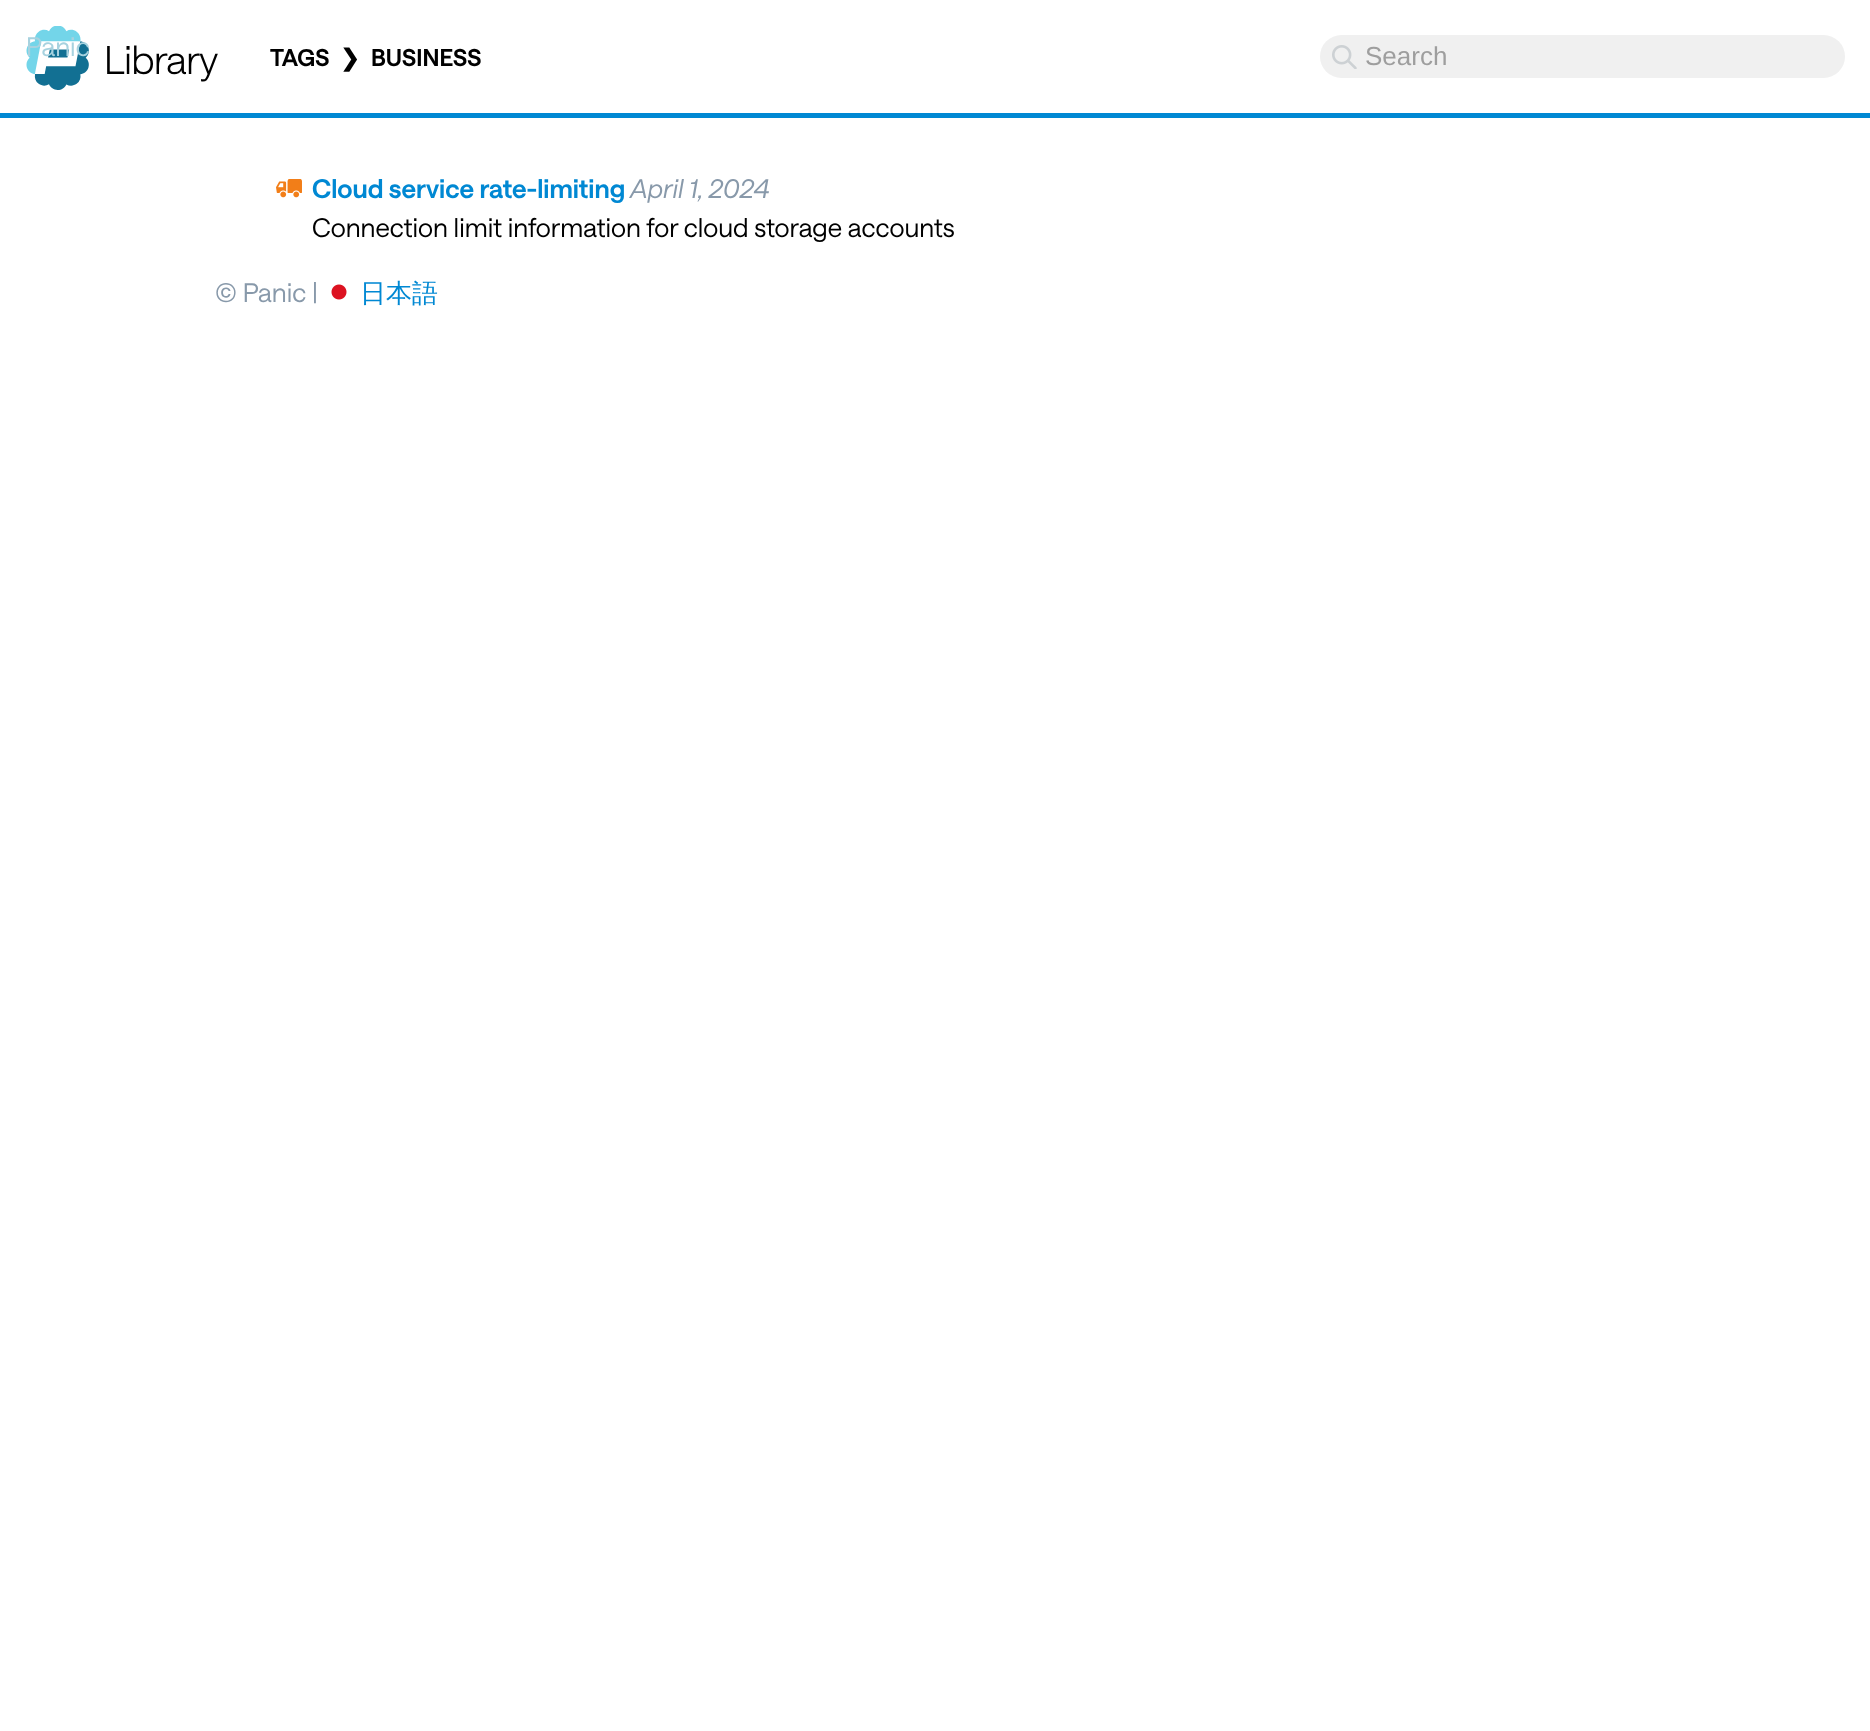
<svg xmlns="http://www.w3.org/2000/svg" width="1870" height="1731">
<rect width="100%" height="100%" fill="#fff"/>
<rect y="113" width="1870" height="5" fill="#0088d3"/>
<image x="26" y="26" width="63" height="64" href="media/1.png"/>
<text x="26" y="56" style="font-family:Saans;font-size:26px;fill:#a7d2df">Panic</text>
<text x="104" y="74" style="font-family:Saans;font-size:39px;font-weight:300;letter-spacing:-0.75px;fill:#000">Library</text>
<text x="270" y="66" style="font-family:Saans;font-size:23.5px;font-weight:600;fill:#000">TAGS</text>
<text x="340" y="66" style="font-family:DejaVu Sans;font-size:23.5px;font-weight:bold;fill:#000">❯</text>
<text x="371" y="66" style="font-family:Saans;font-size:23.5px;font-weight:600;fill:#000">BUSINESS</text>
<rect x="1320" y="35" width="525" height="43" rx="21.5" fill="#f0f0f0"/>
<image x="1332" y="45" width="25" height="24" href="media/2.png"/>
<text x="1365" y="65" style="font-family:Liberation Sans;font-size:26px;fill:#9e9e9e">Search</text>
<image x="276" y="179" width="26" height="19" href="media/3.png"/>
<text x="312" y="198" style="font-family:Saans;font-size:26px;font-weight:600;fill:#0088d3">Cloud service rate-limiting</text>
<text x="630" y="198" style="font-family:Saans;font-size:26px;font-style:italic;fill:#89a">April 1, 2024</text>
<text x="312" y="237" style="font-family:Saans;font-size:26px;fill:#000">Connection limit information for cloud storage accounts</text>
<text x="215" y="302" style="font-family:Saans;font-size:26px;fill:#89a">© Panic |</text>
<image x="331" y="284" width="16" height="16" href="media/4.png"/>
<text x="360" y="302" style="font-family:WenQuanYi Zen Hei;font-size:26px;font-weight:500;fill:#0088d3">日本語</text>
</svg>
